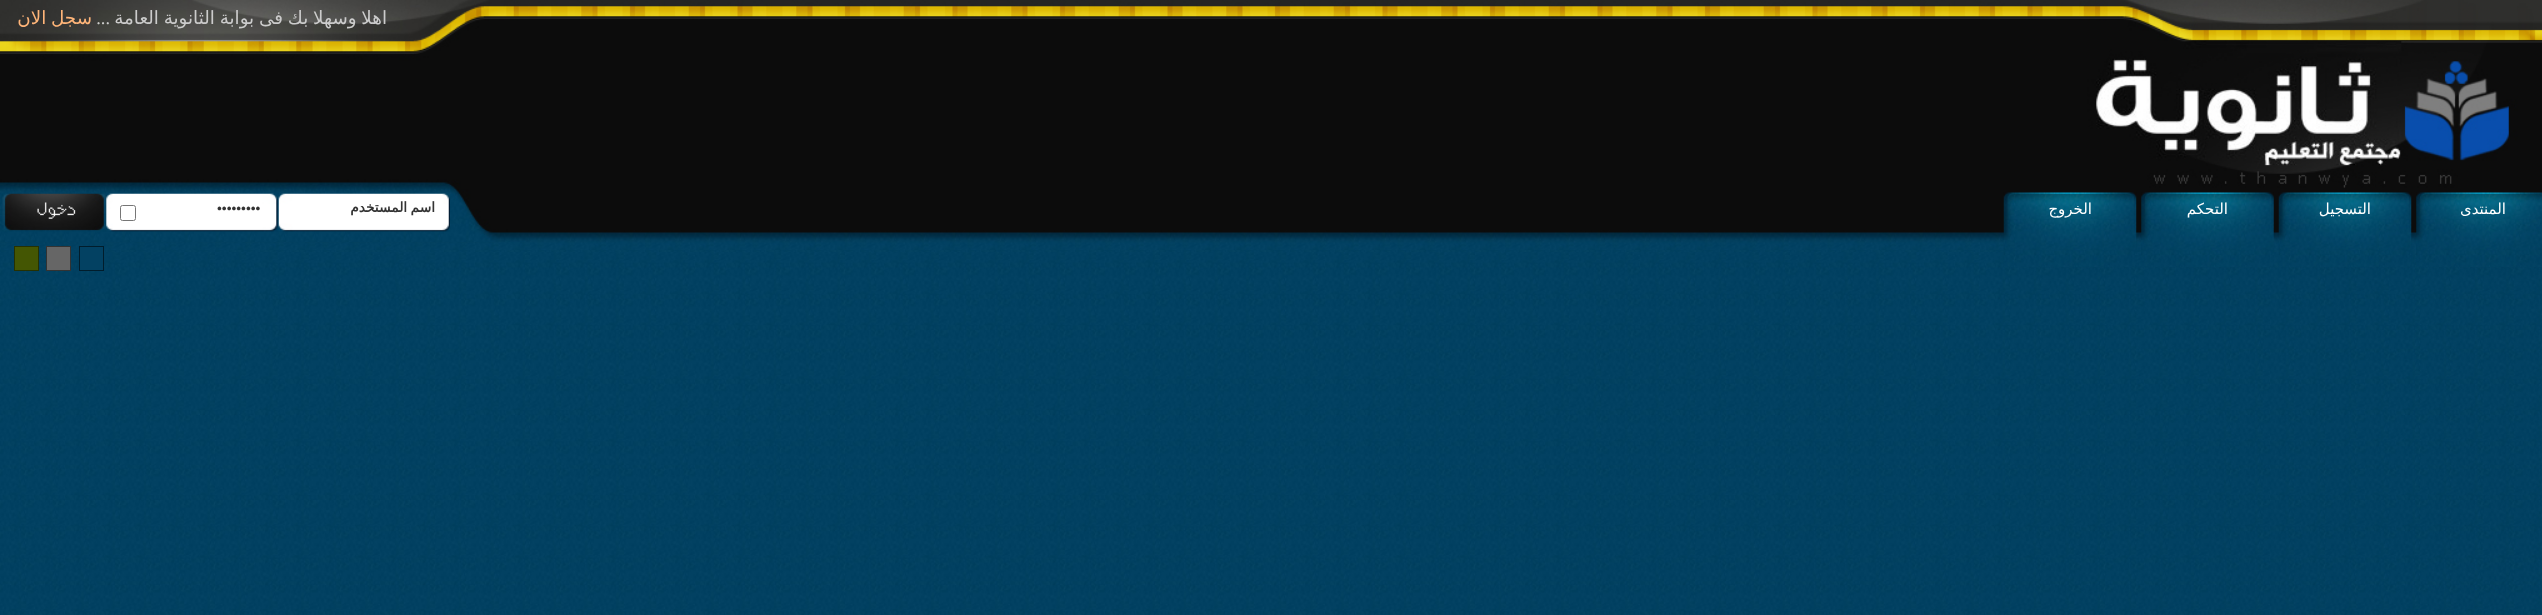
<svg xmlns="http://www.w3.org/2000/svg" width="2542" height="615">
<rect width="100%" height="100%" fill="#fff"/>
<image x="0" y="252" width="2542" height="363" href="media/1.png"/>
<image x="0" y="0" width="2542" height="252" href="media/2.png"/>
<image x="0" y="0" width="528" height="242" href="media/3.png"/>
<image x="2079" y="0" width="463" height="188" href="media/4.png"/>
<text x="387" y="24" word-spacing="-1" style="font-family:DejaVu Sans;font-size:18.3px;direction:rtl;fill:#ccc">اهلا وسهلا بك فى بوابة الثانوية العامة</text>
<text x="110" y="24" style="font-family:Liberation Serif;font-size:18.3px;direction:rtl;fill:#ccc">...</text>
<text x="92" y="24" word-spacing="-1" style="font-family:DejaVu Sans;font-size:18.3px;direction:rtl;fill:#ffb579">سجل الان</text>
<image x="2416" y="192" width="126" height="75" href="media/5.png"/>
<text x="2506" y="214" style="font-family:DejaVu Sans;font-size:15px;direction:rtl;fill:#fff">المنتدى</text>
<image x="2278" y="192" width="134" height="75" href="media/6.png"/>
<text x="2371" y="214" style="font-family:DejaVu Sans;font-size:15px;direction:rtl;fill:#fff">التسجيل</text>
<image x="2141" y="192" width="133" height="75" href="media/7.png"/>
<text x="2228" y="214" style="font-family:DejaVu Sans;font-size:15px;direction:rtl;fill:#fff">التحكم</text>
<image x="2003" y="192" width="134" height="75" href="media/8.png"/>
<text x="2092" y="214" style="font-family:DejaVu Sans;font-size:15px;direction:rtl;fill:#fff">الخروج</text>
<image x="2" y="193" width="448" height="39" href="media/9.png"/>
<text x="435" y="212" word-spacing="-1" style="font-family:DejaVu Sans;font-size:13.75px;font-weight:bold;direction:rtl;fill:#333">اسم المستخدم</text>
<text x="217" y="213" style="font-family:Liberation Serif;font-size:13.75px;font-weight:bold;fill:#333">•••••••••</text>
<rect x="120.5" y="205.5" width="15" height="15" rx="2" fill="none" stroke="#767676"/>
<rect x="79.5" y="246.5" width="24" height="24" fill="#034162" stroke="#011d2c"/>
<rect x="46.5" y="246.5" width="24" height="24" fill="#666" stroke="#333"/>
<rect x="14.5" y="246.5" width="24" height="24" fill="#445603" stroke="#263102"/>
</svg>
